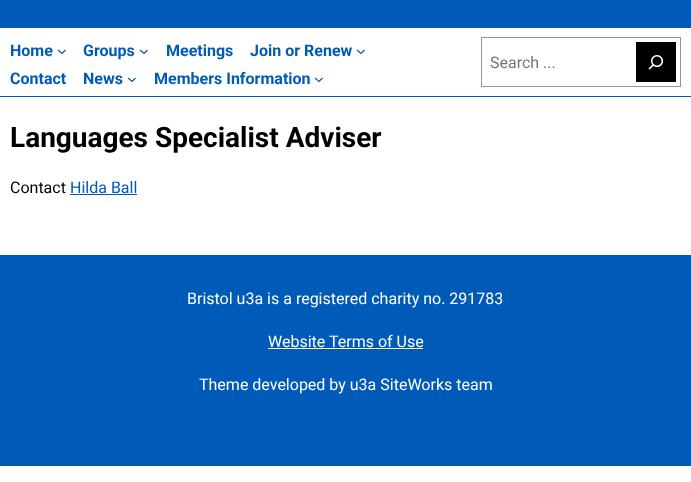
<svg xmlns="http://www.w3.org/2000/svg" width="691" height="482">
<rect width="100%" height="100%" fill="#fff"/>
<rect width="691" height="28" fill="#005ab8"/>
<rect y="96" width="691" height="1" fill="#005ab8"/>
<text x="10" y="56" style="font-family:Roboto;font-size:16px;font-weight:bold;fill:#005ab8">Home</text>
<path d="M58 50l4 3.5l3.5-3.5" fill="none" stroke="#005ab8" stroke-width="1.2"/>
<text x="83" y="56" style="font-family:Roboto;font-size:16px;font-weight:bold;fill:#005ab8">Groups</text>
<path d="M140 50l4 3.5l3.5-3.5" fill="none" stroke="#005ab8" stroke-width="1.2"/>
<text x="166" y="56" style="font-family:Roboto;font-size:16px;font-weight:bold;fill:#005ab8">Meetings</text>
<text x="250" y="56" style="font-family:Roboto;font-size:16px;font-weight:bold;fill:#005ab8">Join or Renew</text>
<path d="M357 50l4 3.5l3.5-3.5" fill="none" stroke="#005ab8" stroke-width="1.2"/>
<text x="10" y="84" style="font-family:Roboto;font-size:16px;font-weight:bold;fill:#005ab8">Contact</text>
<text x="83" y="84" style="font-family:Roboto;font-size:16px;font-weight:bold;fill:#005ab8">News</text>
<path d="M128 78l4 3.5l3.5-3.5" fill="none" stroke="#005ab8" stroke-width="1.2"/>
<text x="154" y="84" style="font-family:Roboto;font-size:16px;font-weight:bold;fill:#005ab8">Members Information</text>
<path d="M315 78l4 3.5l3.5-3.5" fill="none" stroke="#005ab8" stroke-width="1.2"/>
<rect x="481.5" y="37.5" width="199" height="49" fill="none" stroke="#949494"/>
<text x="490" y="68" style="font-family:Roboto;font-size:16px;fill:#757575">Search ...</text>
<rect x="636" y="42" width="40" height="40" fill="#000"/>
<image x="648" y="55" width="16" height="15" href="media/1.png"/>
<text x="10" y="147" style="font-family:Roboto;font-size:28px;font-weight:bold;fill:#000">Languages Specialist Adviser</text>
<text x="10" y="193" style="font-family:Roboto;font-size:16px;fill:#000">Contact</text>
<text x="70" y="193" style="font-family:Roboto;font-size:16px;fill:#005ab8">Hilda Ball</text>
<rect x="70" y="194" width="67" height="1" fill="#005ab8"/>
<rect y="255" width="691" height="211" fill="#005ab8"/>
<text x="187" y="304" style="font-family:Roboto;font-size:16px;fill:#fff">Bristol u3a is a registered charity no. 291783</text>
<text x="268" y="347" style="font-family:Roboto;font-size:16px;fill:#fff">Website Terms of Use</text>
<rect x="268" y="348" width="155" height="1" fill="#fff"/>
<text x="199" y="390" style="font-family:Roboto;font-size:16px;fill:#fff">Theme developed by u3a SiteWorks team</text>
</svg>
